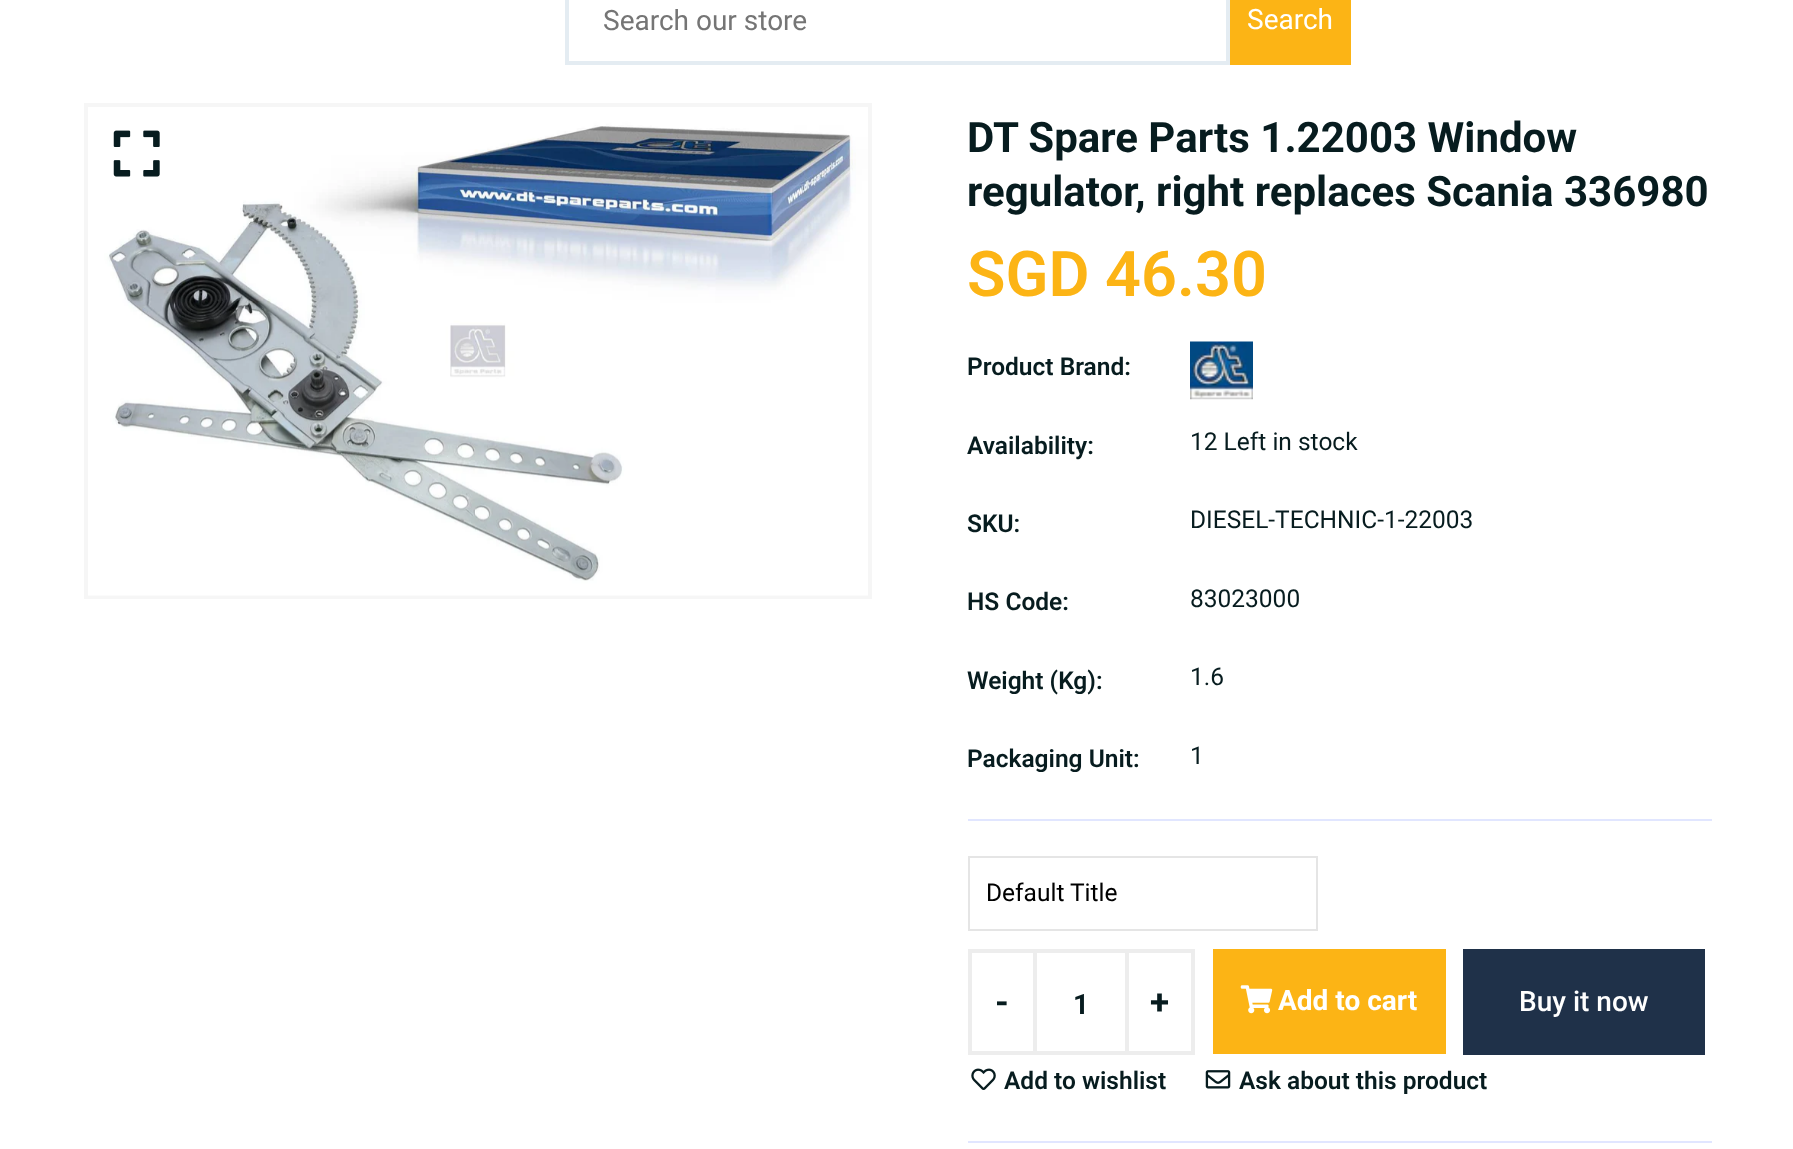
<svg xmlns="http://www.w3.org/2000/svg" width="1793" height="1149">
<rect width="100%" height="100%" fill="#fff"/>
<rect x="567" y="-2" width="661" height="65" fill="none" stroke="#e4ecf2" stroke-width="4"/>
<text x="603" y="30" style="font-family:Roboto;font-size:28px;fill:#757575">Search our store</text>
<rect x="1230" width="121" height="65" fill="#fcb415"/>
<text x="1247" y="29" style="font-family:Roboto;font-size:28px;fill:#fff">Search</text>
<rect x="86" y="105" width="784" height="492" fill="none" stroke="#f6f6f6" stroke-width="4"/>
<image x="88" y="107" width="780" height="489" href="media/1.png"/>
<image x="113" y="130" width="47" height="47" href="media/2.png"/>
<text x="967" y="152" style="font-family:Roboto;font-size:42px;font-weight:bold;fill:#071c1f">DT Spare Parts 1.22003 Window</text>
<text x="967" y="206" style="font-family:Roboto;font-size:42px;font-weight:bold;fill:#071c1f">regulator, right replaces Scania 336980</text>
<text x="967" y="296" style="font-family:Roboto;font-size:63px;font-weight:600;fill:#fcb415">SGD 46.30</text>
<text x="967" y="375" style="font-family:Roboto;font-size:24.5px;font-weight:600;fill:#071c1f">Product Brand:</text>
<image x="1190" y="341" width="63" height="59" href="media/3.png"/>
<text x="967" y="454" style="font-family:Roboto;font-size:24.5px;font-weight:600;fill:#071c1f">Availability:</text>
<text x="1190" y="450" style="font-family:Roboto;font-size:24.5px;fill:#071c1f">12 Left in stock</text>
<text x="967" y="532" style="font-family:Roboto;font-size:24.5px;font-weight:600;fill:#071c1f">SKU:</text>
<text x="1190" y="528" style="font-family:Roboto;font-size:24.5px;fill:#071c1f">DIESEL-TECHNIC-1-22003</text>
<text x="967" y="610" style="font-family:Roboto;font-size:24.5px;font-weight:600;fill:#071c1f">HS Code:</text>
<text x="1190" y="607" style="font-family:Roboto;font-size:24.5px;fill:#071c1f">83023000</text>
<text x="967" y="689" style="font-family:Roboto;font-size:24.5px;font-weight:600;fill:#071c1f">Weight (Kg):</text>
<text x="1190" y="685" style="font-family:Roboto;font-size:24.5px;fill:#071c1f">1.6</text>
<text x="967" y="767" style="font-family:Roboto;font-size:24.5px;font-weight:600;fill:#071c1f">Packaging Unit:</text>
<text x="1190" y="764" style="font-family:Roboto;font-size:24.5px;fill:#071c1f">1</text>
<rect x="968" y="819" width="744" height="2" fill="#e1e6ff"/>
<rect x="969" y="857" width="348" height="73" fill="none" stroke="#e5e5e5" stroke-width="2"/>
<text x="986" y="901" style="font-family:Roboto;font-size:24.5px;fill:#000">Default Title</text>
<rect x="970" y="951" width="223" height="102" fill="none" stroke="#ededed" stroke-width="4"/>
<rect x="1033" y="952" width="4" height="100" fill="#ededed"/>
<text x="995" y="1014" style="font-family:Roboto;font-size:35px;font-weight:bold;fill:#071c1f">-</text>
<text x="1073" y="1014" style="font-family:Roboto;font-size:28px;font-weight:bold;fill:#071c1f">1</text>
<rect x="1125" y="952" width="4" height="100" fill="#ededed"/>
<text x="1150" y="1014" style="font-family:Roboto;font-size:35px;font-weight:bold;fill:#071c1f">+</text>
<rect x="1213" y="949" width="233" height="105" fill="#fcb415"/>
<image x="1240" y="985" width="33" height="29" href="media/4.png"/>
<text x="1278" y="1010" style="font-family:Roboto;font-size:28px;font-weight:bold;fill:#fff">Add to cart</text>
<rect x="1463" y="949" width="242" height="106" fill="#1f3149"/>
<text x="1519" y="1011" style="font-family:Roboto;font-size:28px;font-weight:500;fill:#fff">Buy it now</text>
<image x="971" y="1068" width="25" height="22" href="media/5.png"/>
<text x="1004" y="1089" style="font-family:Roboto;font-size:24.5px;font-weight:600;fill:#071c1f">Add to wishlist</text>
<image x="1205" y="1070" width="26" height="19" href="media/6.png"/>
<text x="1239" y="1089" style="font-family:Roboto;font-size:24.5px;font-weight:600;fill:#071c1f">Ask about this product</text>
<rect x="968" y="1141" width="744" height="2" fill="#e1e6ff"/>
</svg>
